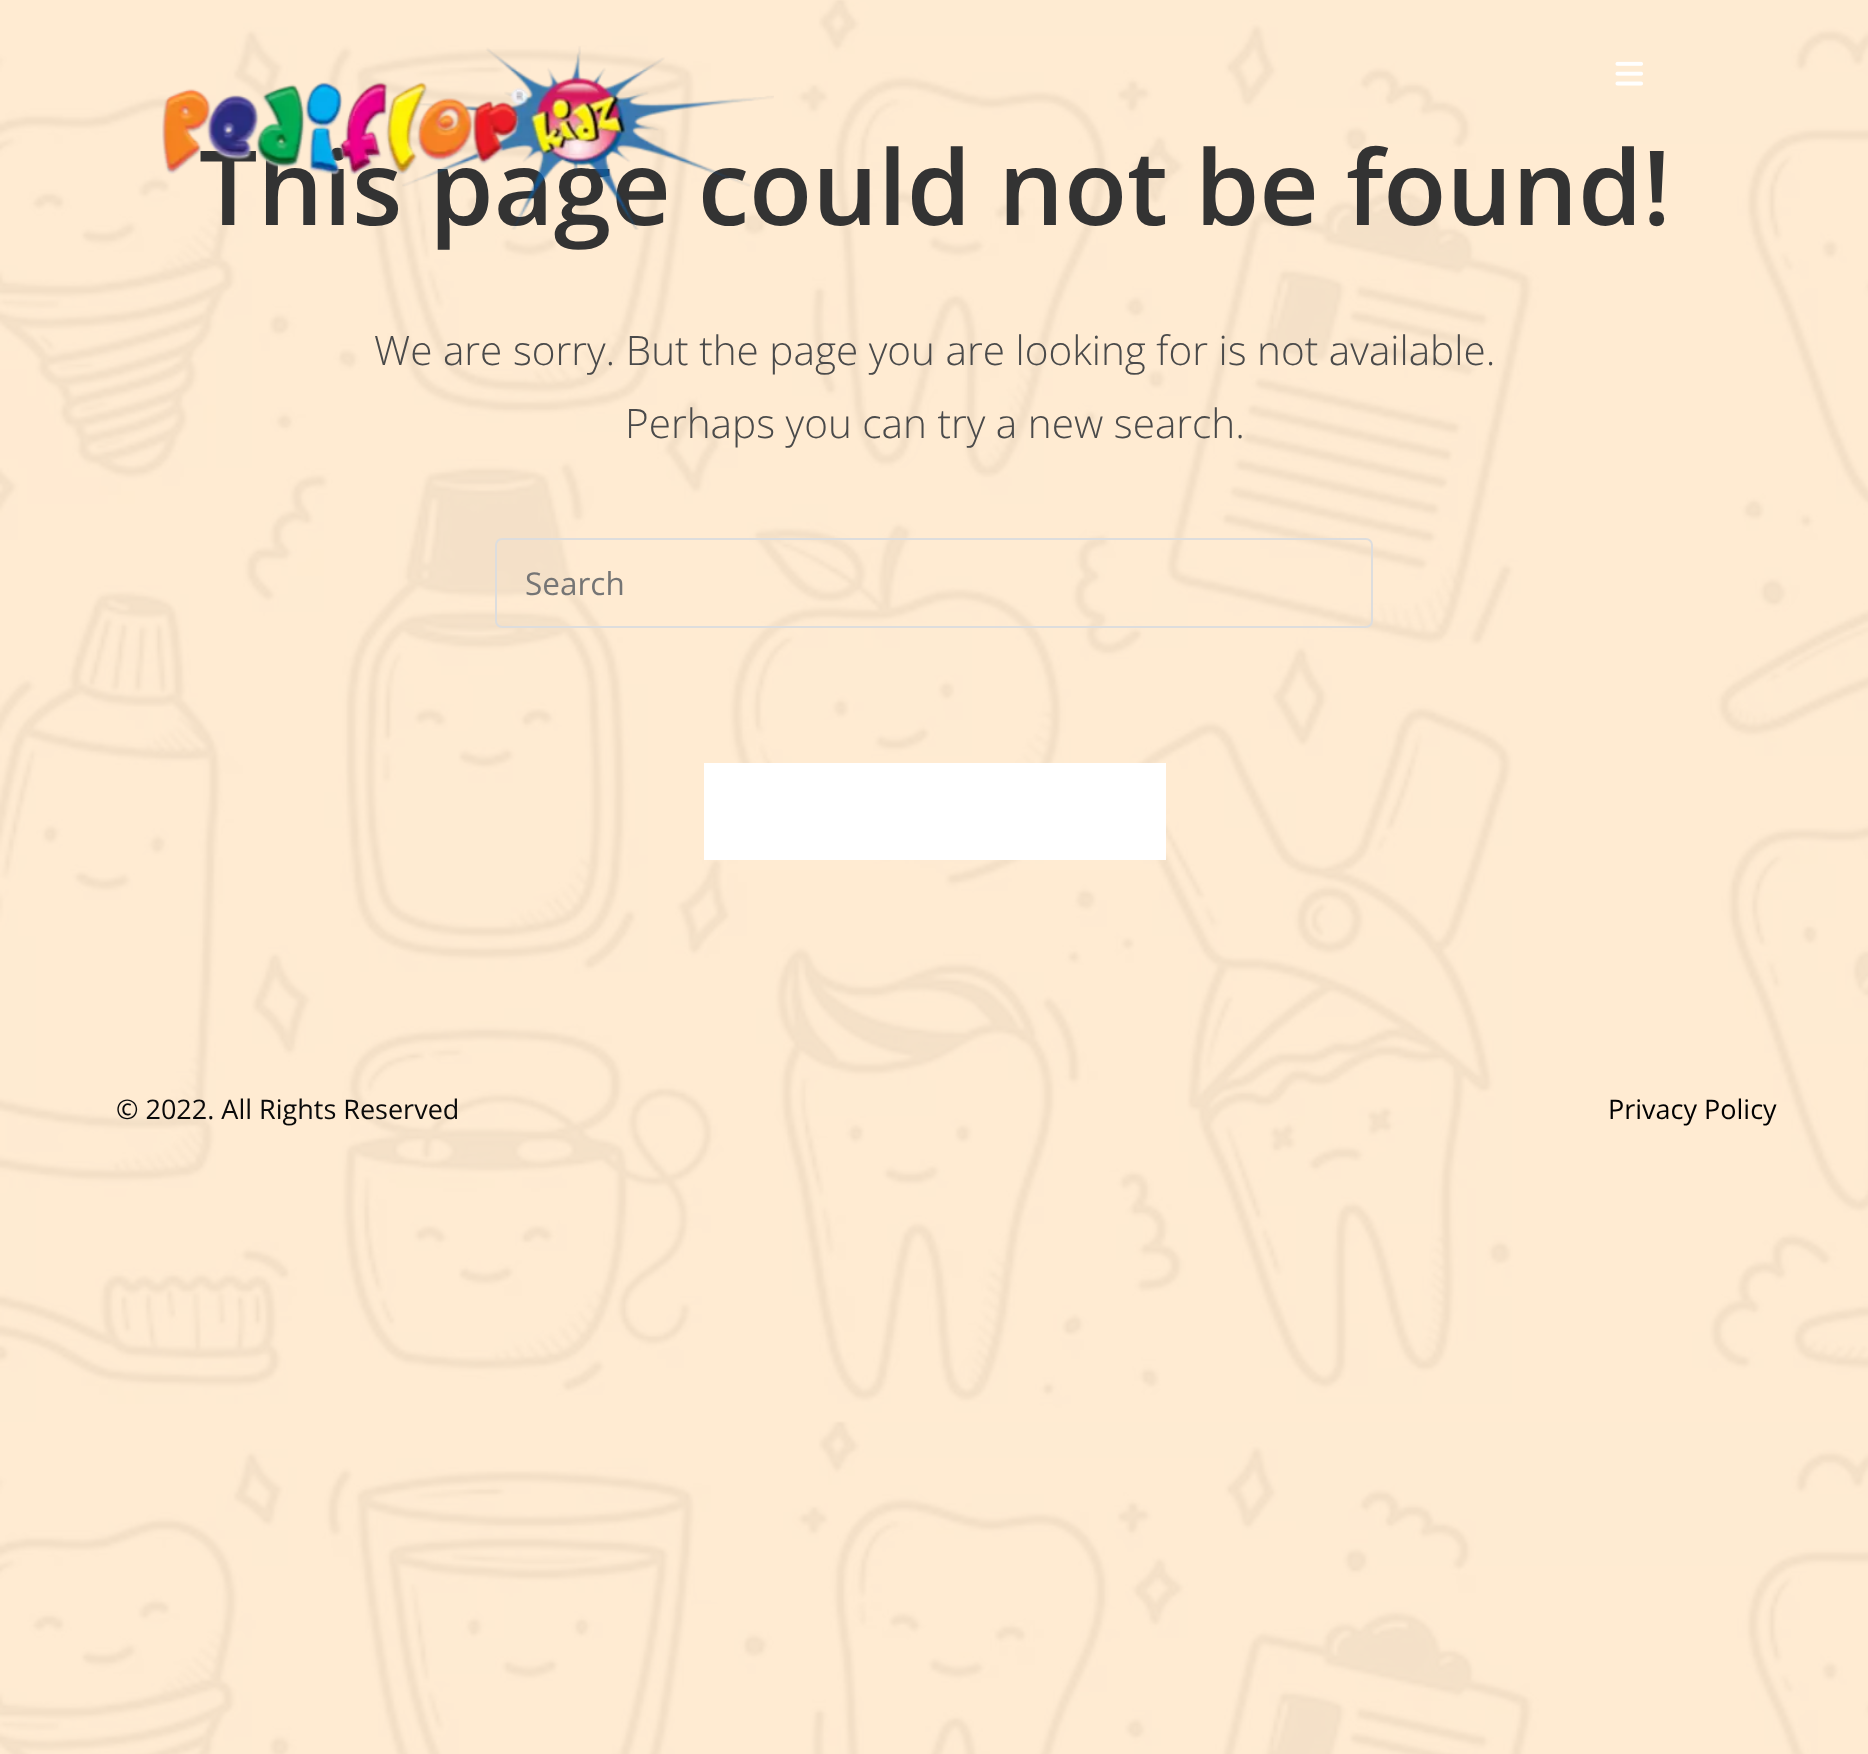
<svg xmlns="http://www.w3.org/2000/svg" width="1868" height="1754">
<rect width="100%" height="100%" fill="#ffead0"/>
<image x="0" y="0" width="1868" height="1754" href="media/1.png"/>
<text x="199" y="225" style="font-family:Open Sans;font-size:103.5px;font-weight:600;fill:#333">This page could not be found!</text>
<image x="162" y="46" width="612" height="184" href="media/2.png"/>
<image x="1615" y="61" width="28" height="25" href="media/3.png"/>
<text x="374" y="365" style="font-family:Open Sans;font-size:40.5px;font-weight:300;fill:#4a4a4a">We are sorry. But the page you are looking for is not available.</text>
<text x="625" y="438" style="font-family:Open Sans;font-size:40.5px;font-weight:300;fill:#4a4a4a">Perhaps you can try a new search.</text>
<rect x="496" y="539" width="876" height="88" rx="6" fill="none" stroke="#ddd" stroke-width="2"/>
<text x="525" y="595" style="font-family:Open Sans;font-size:31.5px;fill:#757575">Search</text>
<rect x="704" y="763" width="462" height="97" fill="#fff"/>
<text x="116" y="1119" style="font-family:Open Sans;font-size:27px;fill:#0a0a0a">© 2022. All Rights Reserved</text>
<text x="1608" y="1119" style="font-family:Open Sans;font-size:27px;fill:#000">Privacy Policy</text>
</svg>
